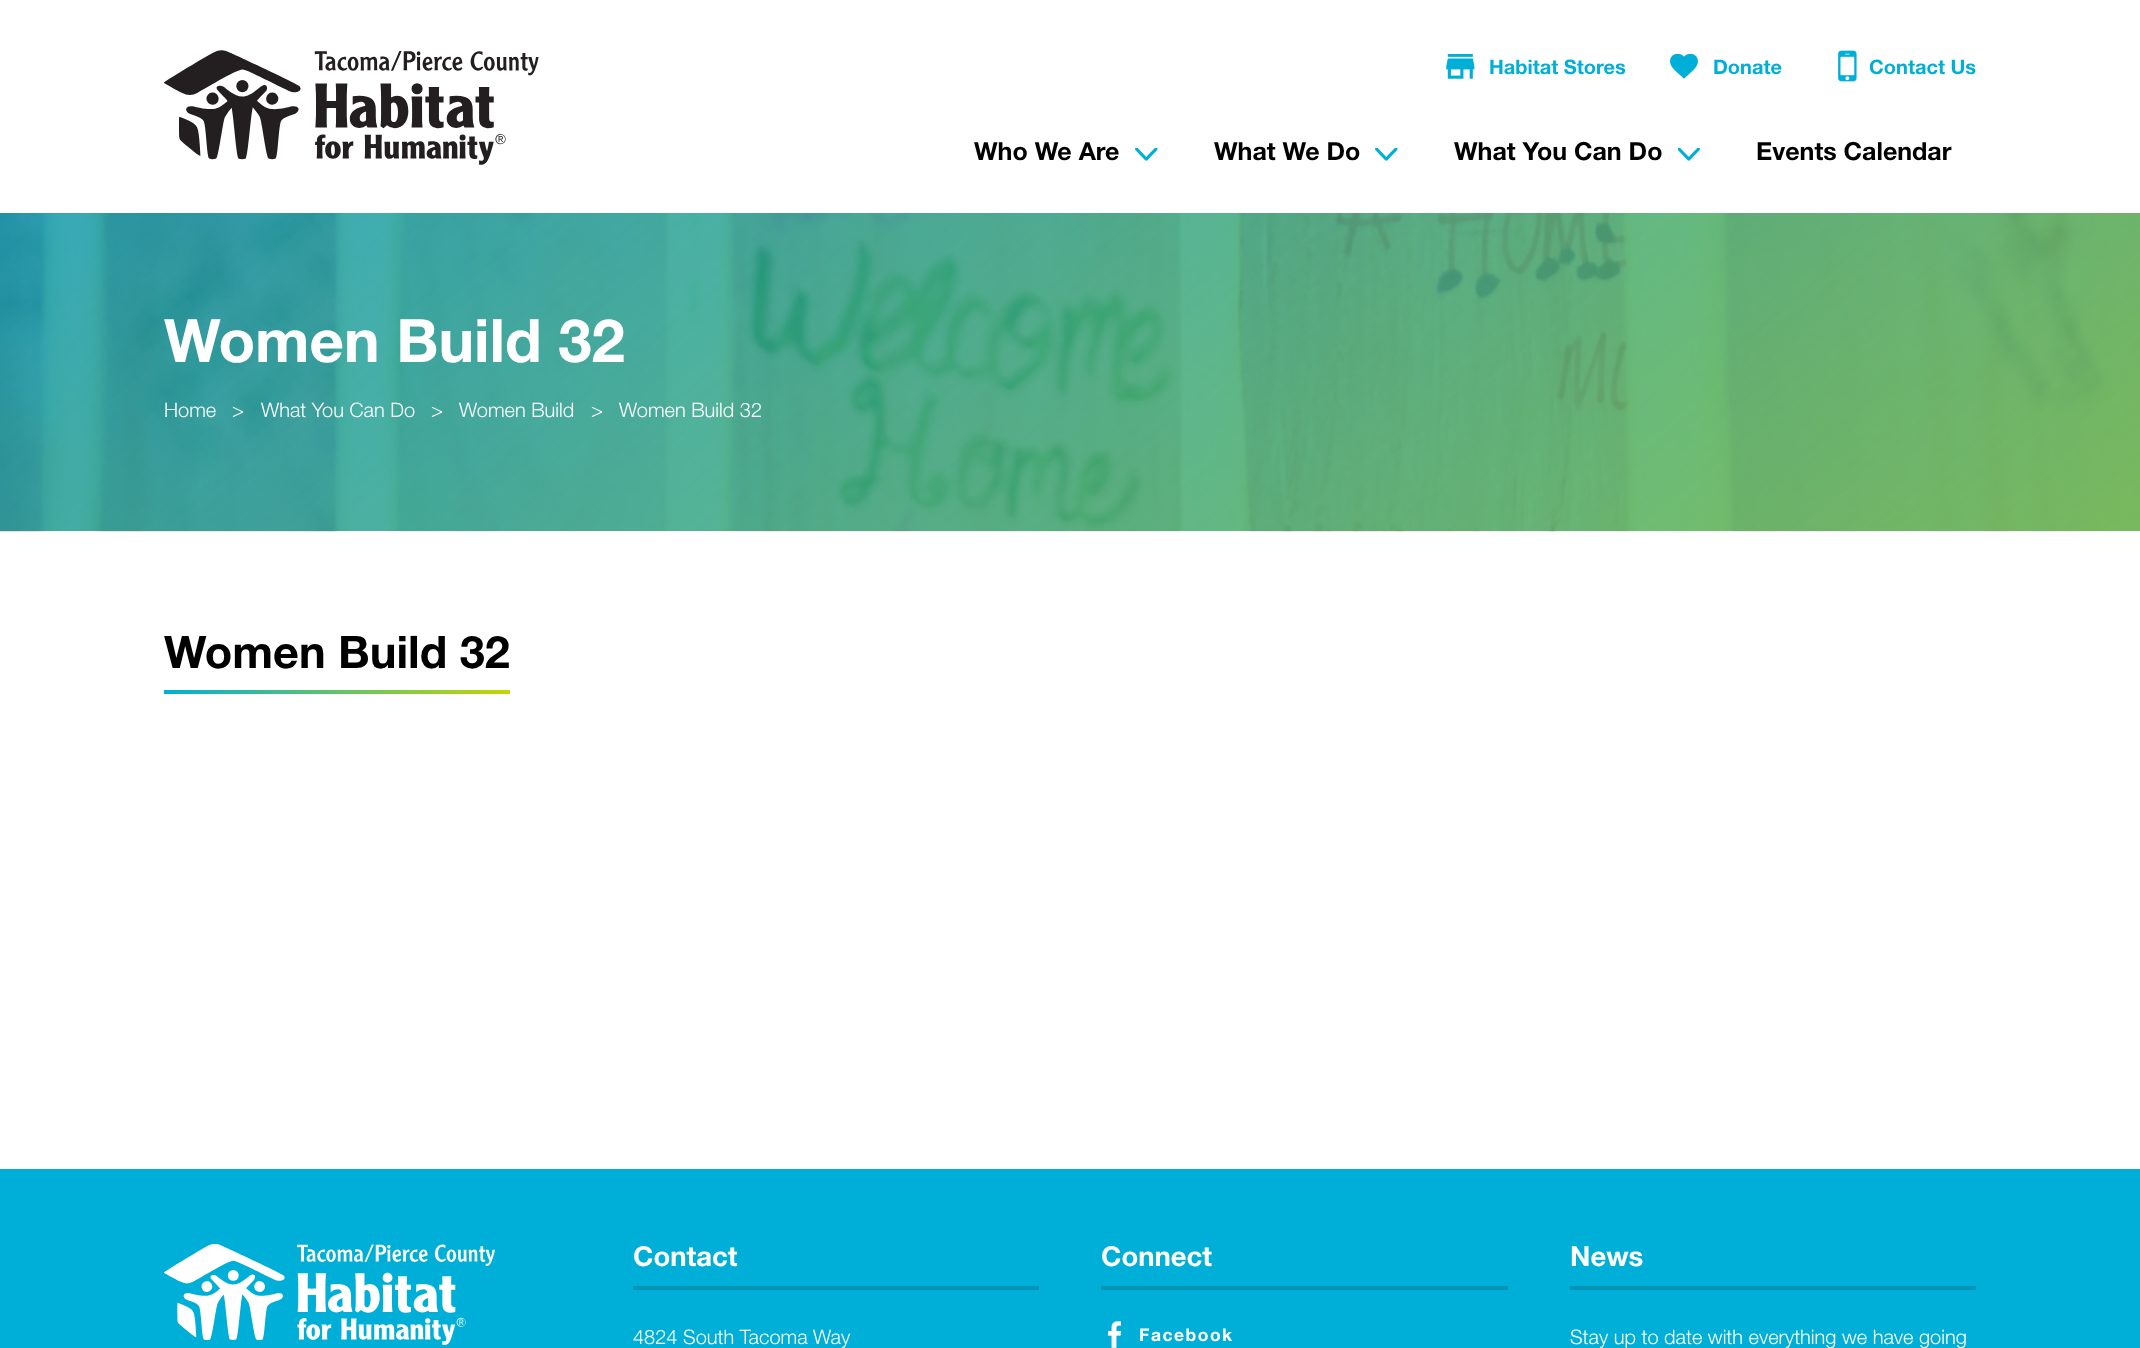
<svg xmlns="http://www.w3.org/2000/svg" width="2140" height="1348">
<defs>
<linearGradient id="g1" gradientUnits="userSpaceOnUse" x1="403" y1="607" x2="270" y2="777"><stop offset="0" stop-color="#c4d600"/><stop offset="1" stop-color="#00afd7"/></linearGradient>
</defs>
<rect width="100%" height="100%" fill="#fff"/>
<image x="164" y="50" width="375" height="115" href="media/1.png"/>
<image x="1446" y="54" width="29" height="25" href="media/2.png"/>
<text x="1489" y="74" style="font-family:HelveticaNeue;font-size:20px;fill:#00afd7">Habitat Stores</text>
<image x="1670" y="54" width="28" height="25" href="media/3.png"/>
<text x="1713" y="74" style="font-family:HelveticaNeue;font-size:20px;fill:#00afd7">Donate</text>
<image x="1838" y="50" width="19" height="32" href="media/4.png"/>
<text x="1869" y="74" style="font-family:HelveticaNeue;font-size:20px;fill:#00afd7">Contact Us</text>
<text x="974" y="160" style="font-family:HelveticaNeue;font-size:25px;fill:#000">Who We Are</text>
<image x="1135" y="148" width="23" height="13" href="media/5.png"/>
<text x="1214" y="160" style="font-family:HelveticaNeue;font-size:25px;fill:#000">What We Do</text>
<image x="1375" y="148" width="23" height="13" href="media/5.png"/>
<text x="1454" y="160" style="font-family:HelveticaNeue;font-size:25px;fill:#000">What You Can Do</text>
<image x="1678" y="148" width="22" height="13" href="media/6.png"/>
<text x="1756" y="160" style="font-family:HelveticaNeue;font-size:25px;fill:#000">Events Calendar</text>
<image x="0" y="213" width="2140" height="319" href="media/7.png"/>
<text x="164" y="362" style="font-family:HelveticaNeue;font-size:60px;fill:#fff">Women Build 32</text>
<text x="164" y="417" style="font-family:'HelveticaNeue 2';font-size:20px;fill:#fff">Home</text>
<text x="232" y="417" style="font-family:'HelveticaNeue 2';font-size:20px;fill:#fff">&gt;</text>
<text x="261" y="417" style="font-family:'HelveticaNeue 2';font-size:20px;fill:#fff">What You Can Do</text>
<text x="431" y="417" style="font-family:'HelveticaNeue 2';font-size:20px;fill:#fff">&gt;</text>
<text x="459" y="417" style="font-family:'HelveticaNeue 2';font-size:20px;fill:#fff">Women Build</text>
<text x="591" y="417" style="font-family:'HelveticaNeue 2';font-size:20px;fill:#fff">&gt;</text>
<text x="619" y="417" style="font-family:'HelveticaNeue 2';font-size:20px;fill:#fff">Women Build 32</text>
<text x="164" y="668" style="font-family:HelveticaNeue;font-size:45px;fill:#000">Women Build 32</text>
<rect x="164" y="690" width="346" height="4" fill="url(#g1)"/>
<rect y="1169" width="2140" height="179" fill="#00afd7"/>
<image x="164" y="1244" width="331" height="101" href="media/8.png"/>
<rect x="633" y="1286" width="406" height="4" fill="#0594b5"/>
<text x="633" y="1266" style="font-family:HelveticaNeue;font-size:27.5px;fill:#fff">Contact</text>
<text x="633" y="1344" style="font-family:'HelveticaNeue 2';font-size:20px;fill:#fff">4824 South Tacoma Way</text>
<rect x="1101" y="1286" width="407" height="4" fill="#0594b5"/>
<text x="1101" y="1266" style="font-family:HelveticaNeue;font-size:27.5px;fill:#fff">Connect</text>
<image x="1108" y="1321" width="13" height="27" href="media/9.png"/>
<text x="1139" y="1341" style="font-family:HelveticaNeue;font-size:17.5px;letter-spacing:1.5px;fill:#fff">Facebook</text>
<rect x="1570" y="1286" width="406" height="4" fill="#0594b5"/>
<text x="1570" y="1266" style="font-family:HelveticaNeue;font-size:27.5px;fill:#fff">News</text>
<text x="1570" y="1344" style="font-family:'HelveticaNeue 2';font-size:20px;fill:#fff">Stay up to date with everything we have going</text>
</svg>
